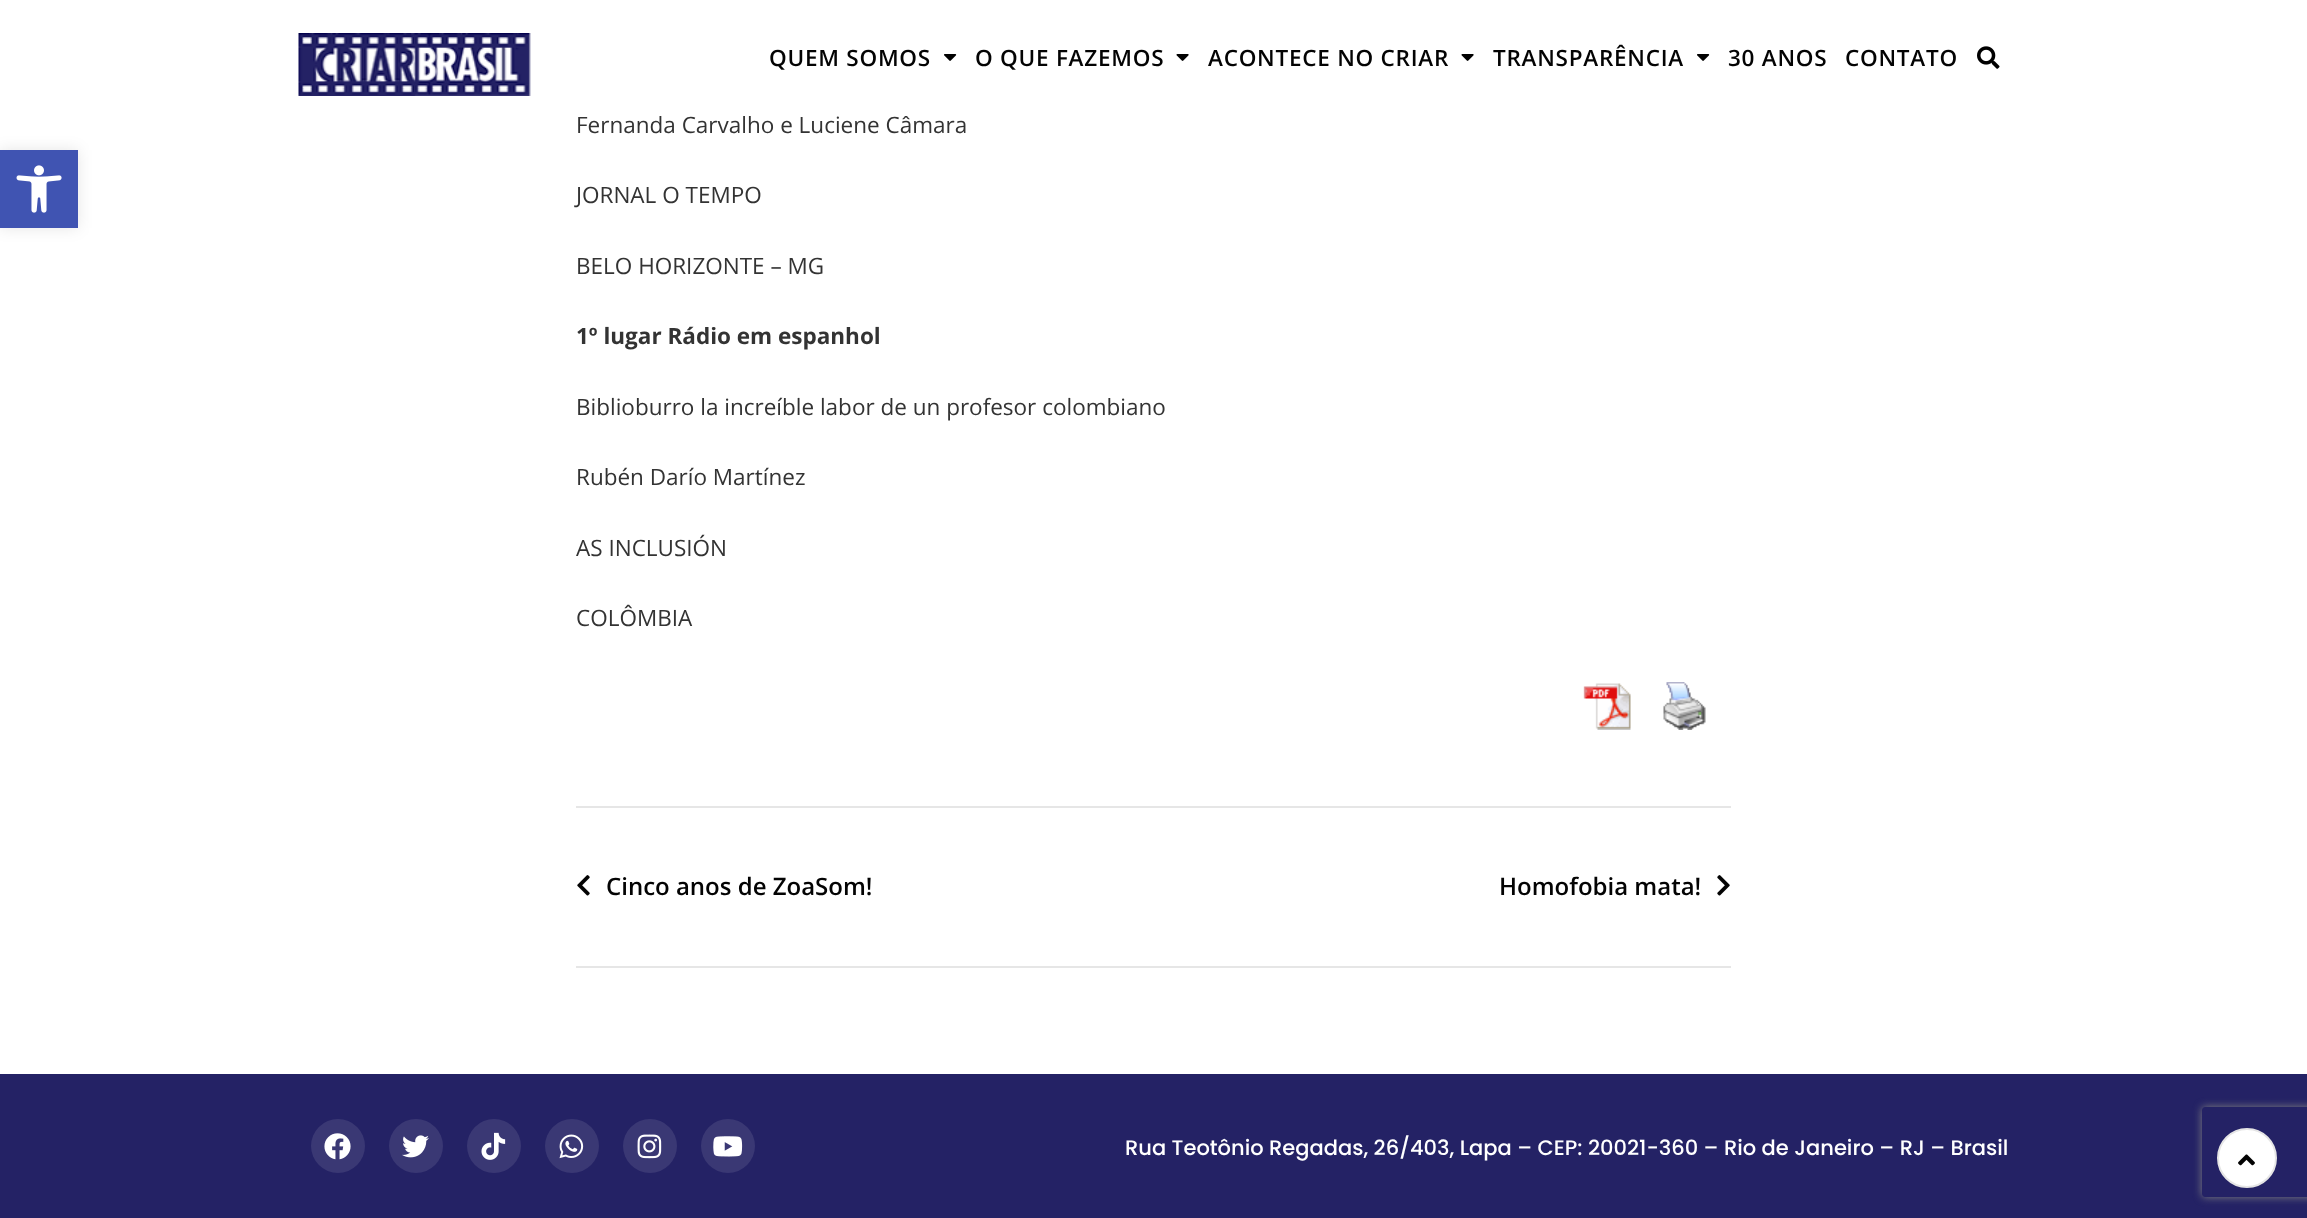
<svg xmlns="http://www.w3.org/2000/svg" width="2307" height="1218">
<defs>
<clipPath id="clip1"><path d="M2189 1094h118v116h-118zm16 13h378c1.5 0 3 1.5 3 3v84c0 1.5-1.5 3-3 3h-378c-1.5 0-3-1.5-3-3v-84c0-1.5 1.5-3 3-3z" clip-rule="evenodd"/></clipPath>
</defs>
<rect width="100%" height="100%" fill="#fff"/>
<rect y="150" width="78" height="78" fill="#0000001a" filter="blur(7.5px)"/>
<rect y="150" width="78" height="78" fill="#4054b2"/>
<image x="16" y="165" width="46" height="48" href="media/1.png"/>
<text x="576" y="133" style="font-family:Open Sans;font-size:22.5px;fill:#333">Fernanda Carvalho e Luciene Câmara</text>
<rect x="659" y="115" width="248" height="1" fill="#fff"/>
<image x="298" y="33" width="233" height="63" href="media/2.png"/>
<text x="769" y="66" style="font-family:Open Sans;font-size:22.5px;font-weight:600;letter-spacing:0.75px;fill:#030303">QUEM SOMOS</text>
<image x="944" y="54" width="13" height="7" href="media/3.png"/>
<text x="975" y="66" style="font-family:Open Sans;font-size:22.5px;font-weight:600;letter-spacing:0.75px;fill:#030303">O QUE FAZEMOS</text>
<image x="1176" y="54" width="13" height="7" href="media/4.png"/>
<text x="1208" y="66" style="font-family:Open Sans;font-size:22.5px;font-weight:600;letter-spacing:0.75px;fill:#030303">ACONTECE NO CRIAR</text>
<image x="1461" y="54" width="13" height="7" href="media/4.png"/>
<text x="1493" y="66" style="font-family:Open Sans;font-size:22.5px;font-weight:600;letter-spacing:0.75px;fill:#030303">TRANSPARÊNCIA</text>
<image x="1697" y="54" width="13" height="7" href="media/3.png"/>
<text x="1728" y="66" style="font-family:Open Sans;font-size:22.5px;font-weight:600;letter-spacing:0.75px;fill:#030303">30 ANOS</text>
<text x="1845" y="66" style="font-family:Open Sans;font-size:22.5px;font-weight:600;letter-spacing:0.75px;fill:#030303">CONTATO</text>
<image x="1977" y="46" width="23" height="23" href="media/5.png"/>
<text x="576" y="203" style="font-family:Open Sans;font-size:22.5px;fill:#333">JORNAL O TEMPO</text>
<text x="576" y="274" style="font-family:Open Sans;font-size:22.5px;fill:#333">BELO HORIZONTE – MG</text>
<text x="576" y="344" style="font-family:Open Sans;font-size:22.5px;font-weight:bold;fill:#333">1º lugar Rádio em espanhol</text>
<text x="576" y="415" style="font-family:Open Sans;font-size:22.5px;fill:#333">Biblioburro la increíble labor de un profesor colombiano</text>
<text x="576" y="485" style="font-family:Open Sans;font-size:22.5px;fill:#333">Rubén Darío Martínez</text>
<text x="576" y="556" style="font-family:Open Sans;font-size:22.5px;fill:#333">AS INCLUSIÓN</text>
<text x="576" y="626" style="font-family:Open Sans;font-size:22.5px;fill:#333">COLÔMBIA</text>
<image x="1583" y="683" width="48" height="47" href="media/6.png"/>
<image x="1663" y="682" width="43" height="48" href="media/7.png"/>
<rect x="576" y="806" width="1155" height="2" fill="#e6e6e6"/>
<rect x="576" y="966" width="1155" height="2" fill="#e6e6e6"/>
<image x="577" y="875" width="13" height="21" href="media/8.png"/>
<text x="606" y="895" style="font-family:Open Sans;font-size:24px;font-weight:600;fill:#030303">Cinco anos de ZoaSom!</text>
<text x="1499" y="895" style="font-family:Open Sans;font-size:24px;font-weight:600;fill:#030303">Homofobia mata!</text>
<image x="1717" y="875" width="13" height="21" href="media/9.png"/>
<rect y="1074" width="2307" height="144" fill="#242265"/>
<circle cx="338" cy="1146" r="27" fill="#3a3874"/>
<image x="324" y="1133" width="27" height="27" href="media/10.png"/>
<circle cx="416" cy="1146" r="27" fill="#3a3874"/>
<image x="402" y="1135" width="27" height="23" href="media/11.png"/>
<circle cx="494" cy="1146" r="27" fill="#3a3874"/>
<image x="481" y="1132" width="25" height="28" href="media/12.png"/>
<circle cx="572" cy="1146" r="27" fill="#3a3874"/>
<image x="559" y="1134" width="25" height="25" href="media/13.png"/>
<circle cx="650" cy="1146" r="27" fill="#3a3874"/>
<image x="637" y="1134" width="25" height="25" href="media/14.png"/>
<circle cx="728" cy="1146" r="27" fill="#3a3874"/>
<image x="713" y="1136" width="30" height="21" href="media/15.png"/>
<text x="1125" y="1155" style="font-family:Poppins;font-size:21px;font-weight:500;fill:#fff">Rua Teotônio Regadas, 26/403, Lapa – CEP: 20021-360 – Rio de Janeiro – RJ – Brasil</text>
<g clip-path="url(#clip1)">
<rect x="2202" y="1107" width="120" height="90" rx="3" fill="#808080" filter="blur(4px)"/>
</g>
<circle cx="2247" cy="1158" r="29" fill="#fff" stroke="#e5e5e5" stroke-width="2"/>
<image x="2238" y="1154" width="17" height="12" href="media/16.png"/>
</svg>
